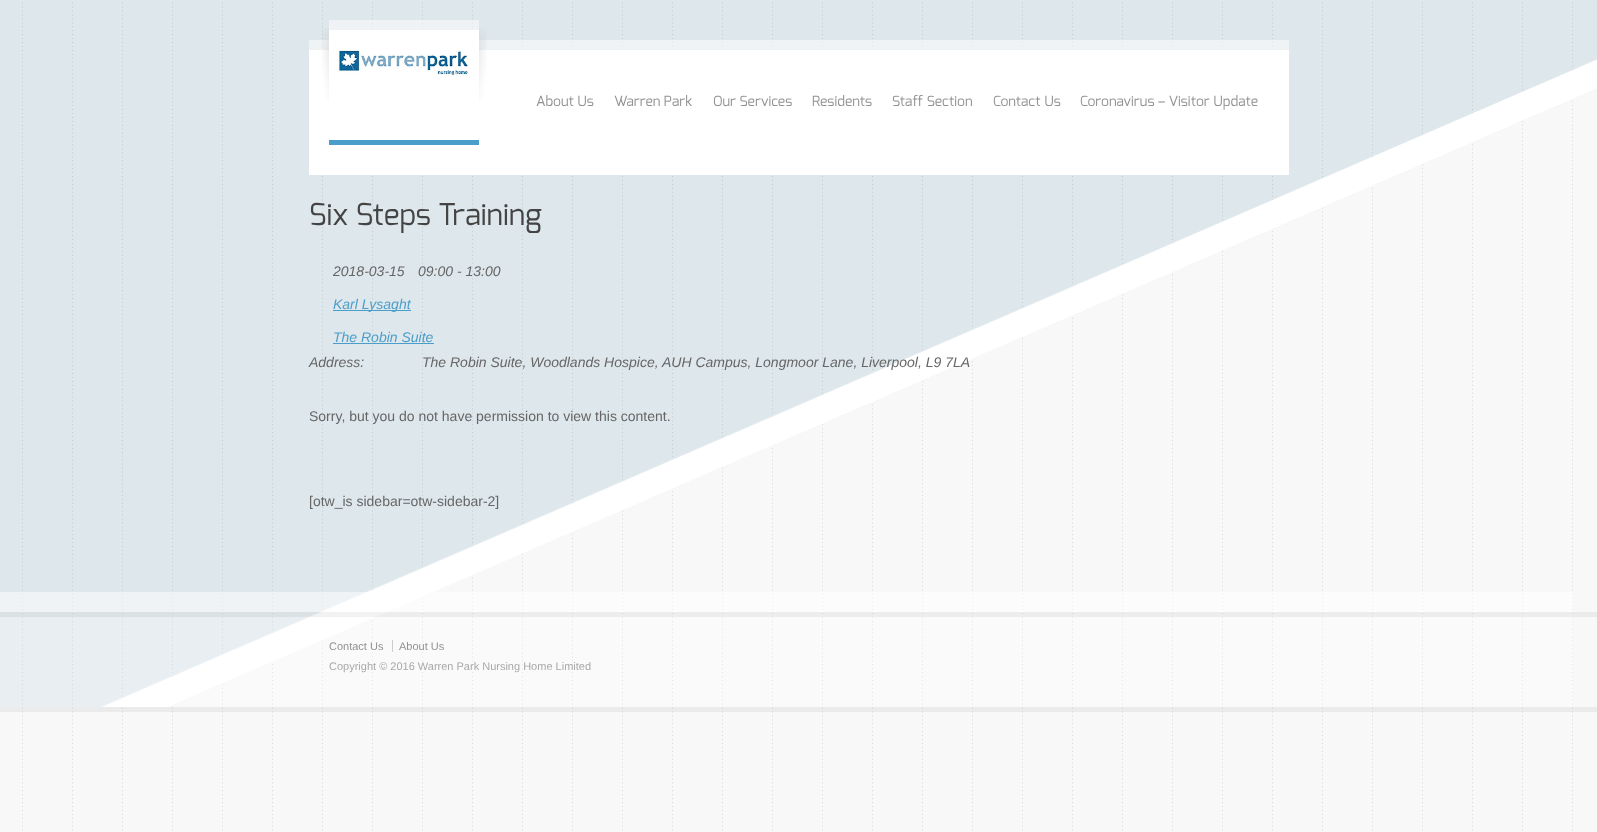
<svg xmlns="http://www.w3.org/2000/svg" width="1597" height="832">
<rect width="100%" height="100%" fill="#fff"/>
<image x="0" y="0" width="1597" height="832" href="media/1.png"/>
<image x="0" y="0" width="1597" height="707" href="media/2.png"/>
<rect x="309" y="40" width="980" height="10" fill="#ffffff80"/>
<rect x="309" y="50" width="980" height="125" fill="#fff"/>
<image x="322" y="28" width="7" height="73" href="media/3.png"/>
<rect x="329" y="140" width="150" height="5" fill="#4b9ec9"/>
<rect x="329" y="20" width="150" height="10" fill="#ffffff80"/>
<rect x="329" y="30" width="150" height="20" fill="#fff"/>
<image x="339" y="50" width="131" height="26" href="media/4.png"/>
<image x="479" y="28" width="8" height="73" href="media/5.png"/>
<text x="536" y="106" style="font-family:Exo;font-size:14px;fill:#919191">About Us</text>
<text x="614" y="106" style="font-family:Exo;font-size:14px;fill:#919191">Warren Park</text>
<text x="713" y="106" style="font-family:Exo;font-size:14px;fill:#919191">Our Services</text>
<text x="812" y="106" style="font-family:Exo;font-size:14px;fill:#919191">Residents</text>
<text x="892" y="106" style="font-family:Exo;font-size:14px;fill:#919191">Staff Section</text>
<text x="993" y="106" style="font-family:Exo;font-size:14px;fill:#919191">Contact Us</text>
<text x="1080" y="106" style="font-family:Exo;font-size:14px;fill:#919191">Coronavirus – Visitor Update</text>
<text x="309" y="225" style="font-family:Exo;font-size:30px;fill:#444">Six Steps Training</text>
<text x="333" y="276" style="font-family:Liberation Sans;font-size:14px;font-style:italic;fill:#666">2018-03-15</text>
<text x="418" y="276" style="font-family:Liberation Sans;font-size:14px;font-style:italic;fill:#666">09:00 - 13:00</text>
<rect x="333" y="310" width="78" height="1" fill="#4b9ec9"/>
<text x="333" y="309" style="font-family:Liberation Sans;font-size:14px;font-style:italic;fill:#4b9ec9">Karl Lysaght</text>
<text x="333" y="342" style="font-family:Liberation Sans;font-size:14px;font-style:italic;fill:#4b9ec9">The Robin Suite</text>
<rect x="333" y="343" width="101" height="1" fill="#4b9ec9"/>
<text x="309" y="367" style="font-family:Liberation Sans;font-size:14px;font-style:italic;fill:#666">Address:</text>
<text x="422" y="367" style="font-family:Liberation Sans;font-size:14px;font-style:italic;fill:#666">The Robin Suite, Woodlands Hospice, AUH Campus, Longmoor Lane, Liverpool, L9 7LA</text>
<text x="309" y="421" style="font-family:Liberation Sans;font-size:14px;fill:#666">Sorry, but you do not have permission to view this content.</text>
<text x="309" y="506" style="font-family:Liberation Sans;font-size:14px;fill:#666">[otw_is sidebar=otw-sidebar-2]</text>
<rect y="592" width="1573" height="20" fill="#ffffff80"/>
<rect y="707" width="1597" height="5" fill="#0000000d"/>
<rect y="612" width="1573" height="95" fill="#ffffff4d"/>
<rect y="612" width="1597" height="5" fill="#0000000d"/>
<text x="329" y="650" style="font-family:Liberation Sans;font-size:11px;fill:#919191">Contact Us</text>
<text x="399" y="650" style="font-family:Liberation Sans;font-size:11px;fill:#919191">About Us</text>
<rect x="392" y="640" width="1" height="12" fill="#cdcdcd"/>
<text x="329" y="670" style="font-family:Liberation Sans;font-size:11px;fill:#a9a9a9">Copyright © 2016 Warren Park Nursing Home Limited</text>
</svg>
